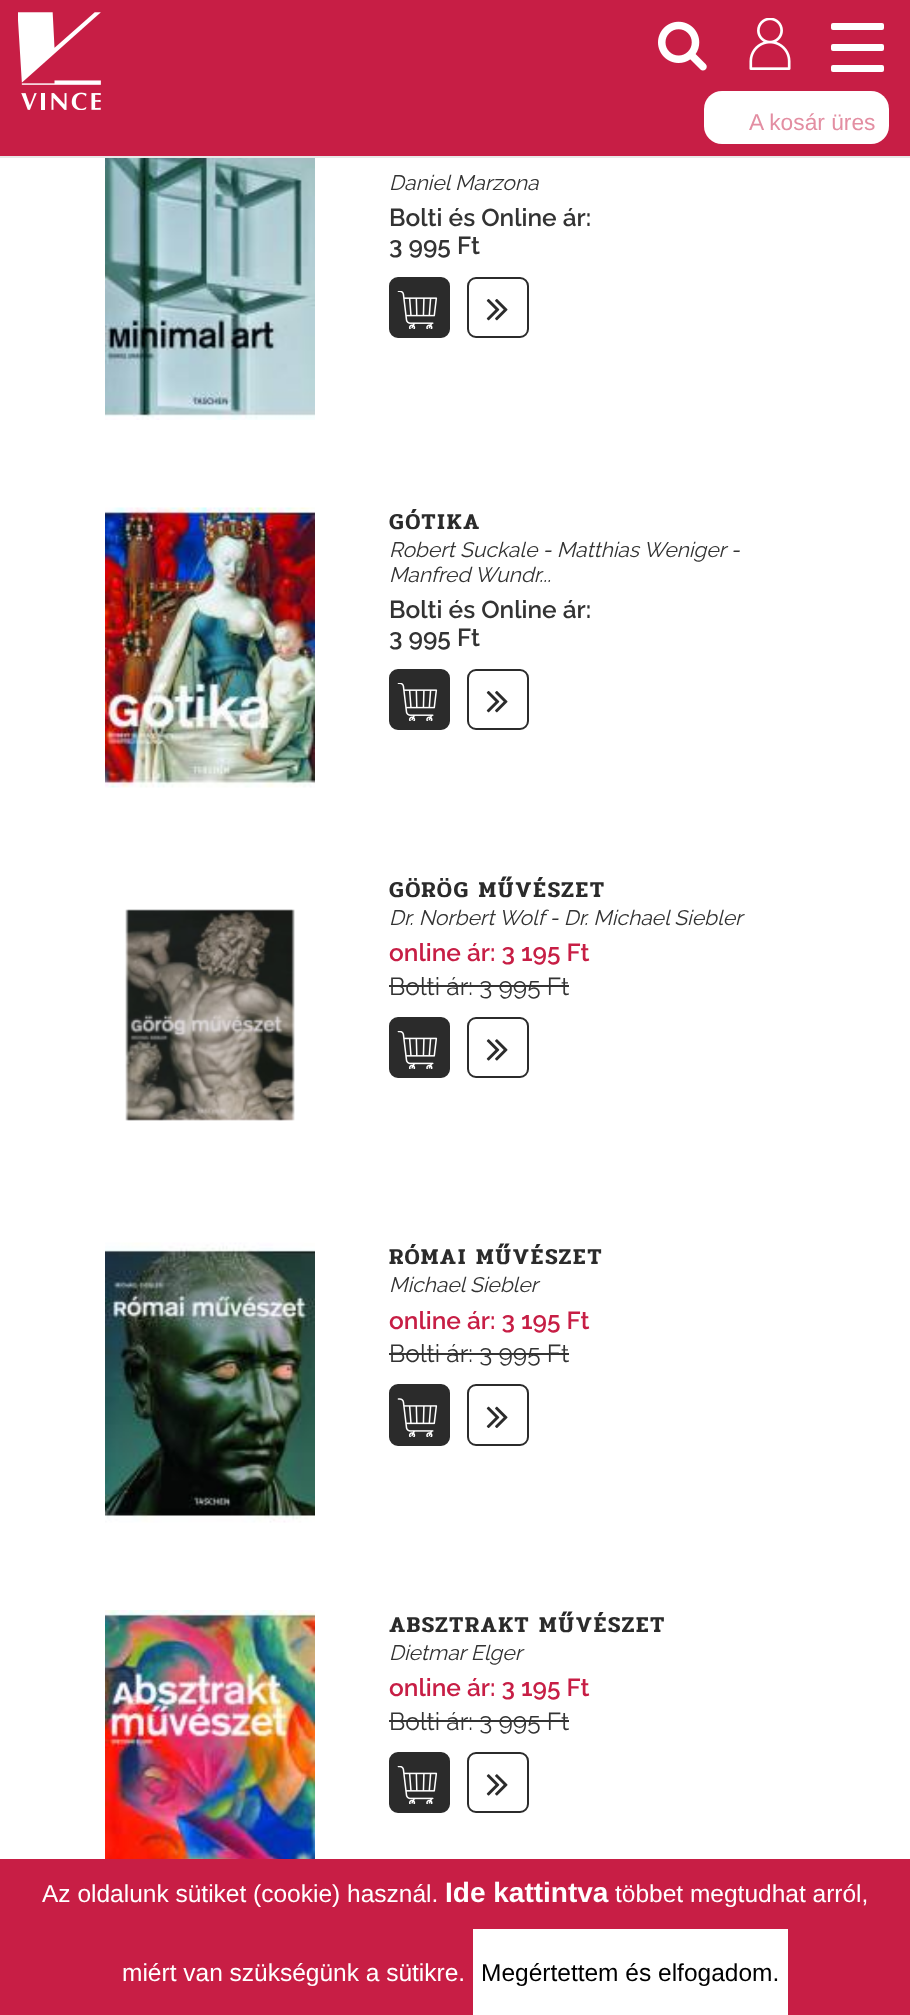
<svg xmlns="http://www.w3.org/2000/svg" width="910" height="2015">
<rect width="100%" height="100%" fill="#fff"/>
<rect width="910" height="156" fill="#c71e45"/>
<rect y="156" width="910" height="2" fill="#e7e7e7"/>
<image x="18" y="12" width="83" height="98" href="media/1.png"/>
<image x="658" y="21" width="49" height="50" href="media/2.png"/>
<image x="749" y="18" width="42" height="52" href="media/3.png"/>
<rect x="831" y="23" width="53" height="7" rx="2" fill="#fff"/>
<rect x="831" y="44" width="53" height="7" rx="2" fill="#fff"/>
<rect x="831" y="65" width="53" height="7" rx="2" fill="#fff"/>
<rect x="704" y="91" width="185" height="53" rx="18" fill="#fff"/>
<text x="749" y="130" style="font-family:Liberation Sans;font-size:22.75px;fill:#e38ea2">A kosár üres</text>
<image x="105" y="158" width="210" height="262" href="media/4.png"/>
<text x="389" y="190" style="font-family:Raleway;font-size:21px;font-style:italic;fill:#333">Daniel Marzona</text>
<text x="389" y="226" style="font-family:Raleway;font-size:24.5px;font-weight:600;fill:#333">Bolti és Online ár:</text>
<text x="389" y="254" style="font-family:Raleway;font-size:24.5px;font-weight:600;fill:#333">3 995 Ft</text>
<rect x="390" y="278" width="59" height="59" rx="8" fill="#2b2b2b" stroke="#2b2b2b" stroke-width="2"/>
<image x="397" y="291" width="41" height="38" href="media/5.png"/>
<rect x="468" y="278" width="60" height="59" rx="8" fill="none" stroke="#2b2b2b" stroke-width="2"/>
<image x="486" y="299" width="22" height="22" href="media/6.png"/>
<image x="105" y="507" width="210" height="281" href="media/7.png"/>
<text x="389" y="529" style="font-family:Pridi;font-size:22.75px;font-weight:600;letter-spacing:1.9px;fill:#2b2b2b">GÓTIKA</text>
<text x="389" y="557" style="font-family:Raleway;font-size:21px;font-style:italic;fill:#333">Robert Suckale - Matthias Weniger -</text>
<text x="389" y="582" style="font-family:Raleway;font-size:21px;font-style:italic;fill:#333">Manfred Wundr...</text>
<text x="389" y="618" style="font-family:Raleway;font-size:24.5px;font-weight:600;fill:#333">Bolti és Online ár:</text>
<text x="389" y="646" style="font-family:Raleway;font-size:24.5px;font-weight:600;fill:#333">3 995 Ft</text>
<rect x="390" y="670" width="59" height="59" rx="8" fill="#2b2b2b" stroke="#2b2b2b" stroke-width="2"/>
<image x="397" y="683" width="41" height="38" href="media/5.png"/>
<rect x="468" y="670" width="60" height="59" rx="8" fill="none" stroke="#2b2b2b" stroke-width="2"/>
<image x="486" y="691" width="22" height="22" href="media/6.png"/>
<image x="125" y="909" width="170" height="212" href="media/8.png"/>
<text x="389" y="897" style="font-family:Pridi;font-size:22.75px;font-weight:600;letter-spacing:1.9px;fill:#2b2b2b">GÖRÖG MŰVÉSZET</text>
<text x="389" y="925" style="font-family:Raleway;font-size:21px;font-style:italic;fill:#333">Dr. Norbert Wolf - Dr. Michael Siebler</text>
<text x="389" y="961" style="font-family:Raleway;font-size:24.5px;font-weight:600;fill:#c71e45">online ár: 3 195 Ft</text>
<text x="389" y="995" style="font-family:Raleway;font-size:24.5px;fill:#333">Bolti ár: 3 995 Ft</text>
<rect x="389" y="985" width="180" height="2" fill="#333"/>
<rect x="390" y="1018" width="59" height="59" rx="8" fill="#2b2b2b" stroke="#2b2b2b" stroke-width="2"/>
<image x="397" y="1031" width="41" height="38" href="media/9.png"/>
<rect x="468" y="1018" width="60" height="59" rx="8" fill="none" stroke="#2b2b2b" stroke-width="2"/>
<image x="486" y="1039" width="22" height="22" href="media/10.png"/>
<image x="105" y="1242" width="210" height="281" href="media/11.png"/>
<text x="389" y="1264" style="font-family:Pridi;font-size:22.75px;font-weight:600;letter-spacing:1.9px;fill:#2b2b2b">RÓMAI MŰVÉSZET</text>
<text x="389" y="1292" style="font-family:Raleway;font-size:21px;font-style:italic;fill:#333">Michael Siebler</text>
<text x="389" y="1329" style="font-family:Raleway;font-size:24.5px;font-weight:600;fill:#c71e45">online ár: 3 195 Ft</text>
<text x="389" y="1362" style="font-family:Raleway;font-size:24.5px;fill:#333">Bolti ár: 3 995 Ft</text>
<rect x="389" y="1353" width="180" height="2" fill="#333"/>
<rect x="390" y="1385" width="59" height="60" rx="8" fill="#2b2b2b" stroke="#2b2b2b" stroke-width="2"/>
<image x="397" y="1398" width="41" height="39" href="media/12.png"/>
<rect x="468" y="1385" width="60" height="60" rx="8" fill="none" stroke="#2b2b2b" stroke-width="2"/>
<image x="486" y="1406" width="22" height="22" href="media/13.png"/>
<image x="105" y="1610" width="210" height="249" href="media/14.png"/>
<text x="389" y="1632" style="font-family:Pridi;font-size:22.75px;font-weight:600;letter-spacing:1.9px;fill:#2b2b2b">ABSZTRAKT MŰVÉSZET</text>
<text x="389" y="1660" style="font-family:Raleway;font-size:21px;font-style:italic;fill:#333">Dietmar Elger</text>
<text x="389" y="1696" style="font-family:Raleway;font-size:24.5px;font-weight:600;fill:#c71e45">online ár: 3 195 Ft</text>
<text x="389" y="1730" style="font-family:Raleway;font-size:24.5px;fill:#333">Bolti ár: 3 995 Ft</text>
<rect x="389" y="1720" width="180" height="2" fill="#333"/>
<rect x="390" y="1753" width="59" height="59" rx="8" fill="#2b2b2b" stroke="#2b2b2b" stroke-width="2"/>
<image x="397" y="1766" width="41" height="38" href="media/9.png"/>
<rect x="468" y="1753" width="60" height="59" rx="8" fill="none" stroke="#2b2b2b" stroke-width="2"/>
<image x="486" y="1774" width="22" height="22" href="media/10.png"/>
<rect y="1859" width="910" height="156" fill="#c81e45"/>
<text x="42" y="1902" style="font-family:Liberation Sans;font-size:24.5px;fill:#fff">Az oldalunk sütiket (cookie) használ.</text>
<text x="445" y="1902" style="font-family:Liberation Sans;font-size:28px;font-weight:bold;fill:#fff">Ide kattintva</text>
<text x="615" y="1902" style="font-family:Liberation Sans;font-size:24.5px;fill:#fff">többet megtudhat arról,</text>
<text x="122" y="1981" style="font-family:Liberation Sans;font-size:24.5px;fill:#fff">miért van szükségünk a sütikre.</text>
<rect x="473" y="1929" width="315" height="86" fill="#fff"/>
<text x="481" y="1981" style="font-family:Liberation Sans;font-size:24.5px;fill:#000">Megértettem és elfogadom.</text>
</svg>
